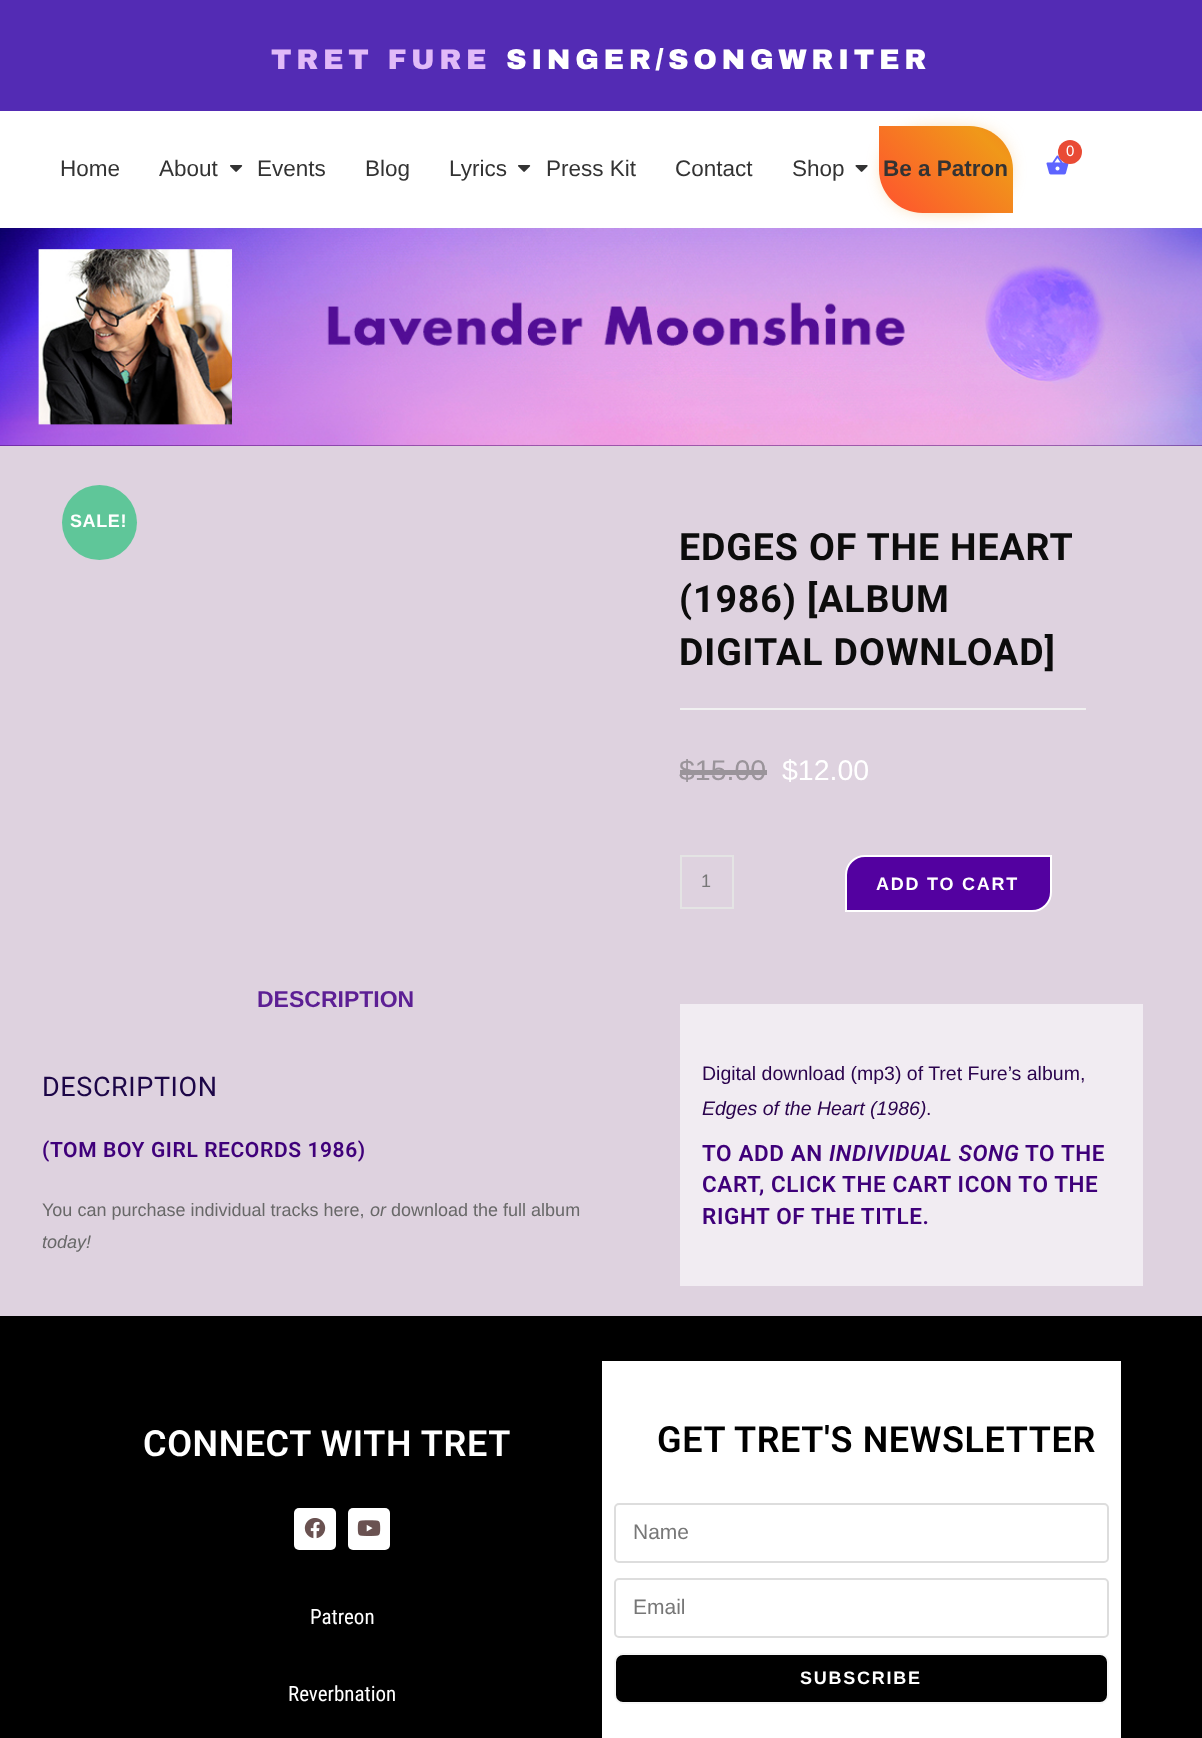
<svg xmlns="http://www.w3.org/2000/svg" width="1202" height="1738">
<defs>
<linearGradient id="g1" gradientUnits="userSpaceOnUse" x1="924" y1="258" x2="1101" y2="81"><stop offset="0" stop-color="#ff512f"/><stop offset="0.51" stop-color="#f09819"/><stop offset="1" stop-color="#ff512f"/></linearGradient>
</defs>
<rect width="100%" height="100%" fill="#ded2df"/>
<rect y="111" width="1202" height="117" fill="#fff"/>
<rect width="1202" height="111" fill="#532bb4"/>
<text x="271" y="69" style="font-family:Archivo Black;font-size:28.5px;font-weight:900;letter-spacing:4.6px;fill:#e1baf8">TRET FURE</text>
<text x="506" y="69" style="font-family:Archivo Black;font-size:28.5px;font-weight:900;letter-spacing:4.6px;fill:#fff">SINGER/SONGWRITER</text>
<image x="1046" y="155" width="23" height="20" href="media/1.png"/>
<circle cx="1070" cy="152" r="12" fill="#e94b35"/>
<text x="1066" y="156" style="font-family:Liberation Sans;font-size:15px;fill:#fff">0</text>
<text x="60" y="176" style="font-family:Liberation Sans;font-size:22.5px;fill:#333">Home</text>
<text x="159" y="176" style="font-family:Liberation Sans;font-size:22.5px;fill:#333">About</text>
<image x="230" y="165" width="13" height="7" href="media/2.png"/>
<text x="257" y="176" style="font-family:Liberation Sans;font-size:22.5px;fill:#333">Events</text>
<text x="365" y="176" style="font-family:Liberation Sans;font-size:22.5px;fill:#333">Blog</text>
<text x="449" y="176" style="font-family:Liberation Sans;font-size:22.5px;fill:#333">Lyrics</text>
<image x="518" y="165" width="13" height="7" href="media/2.png"/>
<text x="546" y="176" style="font-family:Liberation Sans;font-size:22.5px;fill:#333">Press Kit</text>
<text x="675" y="176" style="font-family:Liberation Sans;font-size:22.5px;fill:#333">Contact</text>
<text x="792" y="176" style="font-family:Liberation Sans;font-size:22.5px;fill:#333">Shop</text>
<rect x="890" y="137" width="112" height="66" rx="33" fill="#f09819" filter="blur(10.5px)"/>
<image x="855" y="165" width="13" height="7" href="media/3.png"/>
<path d="M879 126h90.5c24 0 43.5 19.5 43.5 43.5v43.5h-90.5c-24 0-43.5-19.5-43.5-43.5z" fill="url(#g1)"/>
<text x="883" y="176" style="font-family:Liberation Sans;font-size:22.5px;font-weight:bold;fill:#333">Be a Patron</text>
<rect y="445" width="1202" height="1" fill="#4c0c72"/>
<image x="0" y="228" width="1202" height="218" href="media/4.png"/>
<circle cx="99.5" cy="522.5" r="37.5" fill="#5fc699"/>
<text x="70" y="527" style="font-family:Liberation Sans;font-size:18px;font-weight:bold;letter-spacing:0.6px;fill:#fff">SALE!</text>
<text x="257" y="1007" style="font-family:Liberation Sans;font-size:23px;font-weight:bold;fill:#5c1f94">DESCRIPTION</text>
<text x="42" y="1096" style="font-family:Roboto;font-size:27px;letter-spacing:0.6px;fill:#1c0647">DESCRIPTION</text>
<text x="42" y="1157" style="font-family:Roboto;font-size:21px;font-weight:600;letter-spacing:0.6px;fill:#3f007a">(TOM BOY GIRL RECORDS 1986)</text>
<text x="42" y="1216" style="font-family:Liberation Sans;font-size:18px;fill:#686868">You can purchase individual tracks here,</text>
<text x="370" y="1216" style="font-family:Liberation Sans;font-size:18px;font-style:italic;fill:#686868">or</text>
<text x="391" y="1216" style="font-family:Liberation Sans;font-size:18px;fill:#686868">download the full album</text>
<text x="42" y="1248" style="font-family:Liberation Sans;font-size:18px;font-style:italic;fill:#686868">today!</text>
<rect x="680" y="708" width="406" height="2" fill="#f1f1f1"/>
<text x="679" y="560" style="font-family:Roboto;font-size:37.5px;font-weight:bold;letter-spacing:0.9px;fill:#0c0c0c">EDGES OF THE HEART</text>
<text x="679" y="612" style="font-family:Roboto;font-size:37.5px;font-weight:bold;letter-spacing:0.9px;fill:#0c0c0c">(1986) [ALBUM</text>
<text x="679" y="665" style="font-family:Roboto;font-size:37.5px;font-weight:bold;letter-spacing:0.9px;fill:#0c0c0c">DIGITAL DOWNLOAD]</text>
<text x="679" y="780" style="font-family:Liberation Sans;font-size:28.5px;fill:#9a949a">$15.00</text>
<rect x="680" y="770" width="87" height="5" fill="#9a949a"/>
<text x="782" y="780" style="font-family:Liberation Sans;font-size:28.5px;fill:#fff">$12.00</text>
<rect x="681" y="856" width="52" height="52" fill="none" stroke="#e4e4e4" stroke-width="2"/>
<text x="701" y="887" style="font-family:Liberation Sans;font-size:18px;fill:#777">1</text>
<path d="M865 856h186v36c0 10.5-8.5 19-19 19h-186v-36c0-10.5 8.5-19 19-19z" fill="#5301a0" stroke="#fff" stroke-width="2"/>
<text x="876" y="890" style="font-family:Liberation Sans;font-size:18px;font-weight:bold;letter-spacing:1.75px;fill:#fff">ADD TO CART</text>
<rect x="680" y="1004" width="463" height="282" fill="#f1ecf2"/>
<text x="702" y="1080" style="font-family:Liberation Sans;font-size:19.5px;fill:#2a034d">Digital download (mp3) of Tret Fure’s album,</text>
<text x="702" y="1115" style="font-family:Liberation Sans;font-size:19.5px;font-style:italic;fill:#2a034d">Edges of the Heart (1986)</text>
<text x="926" y="1115" style="font-family:Liberation Sans;font-size:19.5px;fill:#2a034d">.</text>
<text x="702" y="1161" style="font-family:Roboto;font-size:22.5px;font-weight:600;letter-spacing:0.6px;fill:#3f007a">TO ADD AN</text>
<text x="829" y="1161" style="font-family:Roboto;font-size:22.5px;font-weight:600;font-style:italic;letter-spacing:0.6px;fill:#3f007a">INDIVIDUAL SONG</text>
<text x="1025" y="1161" style="font-family:Roboto;font-size:22.5px;font-weight:600;letter-spacing:0.6px;fill:#3f007a">TO THE</text>
<text x="702" y="1192" style="font-family:Roboto;font-size:22.5px;font-weight:600;letter-spacing:0.6px;fill:#3f007a">CART, CLICK THE CART ICON TO THE</text>
<text x="702" y="1224" style="font-family:Roboto;font-size:22.5px;font-weight:600;letter-spacing:0.6px;fill:#3f007a">RIGHT OF THE TITLE.</text>
<rect y="1316" width="1202" height="422" fill="#000"/>
<text x="143" y="1456" style="font-family:Roboto;font-size:36px;font-weight:600;letter-spacing:0.6px;fill:#fff">CONNECT WITH TRET</text>
<rect x="294" y="1508" width="42" height="42" rx="5" fill="#fff"/>
<image x="304" y="1518" width="22" height="21" href="media/5.png"/>
<rect x="348" y="1508" width="42" height="42" rx="5" fill="#fff"/>
<image x="357" y="1520" width="24" height="16" href="media/6.png"/>
<text x="310" y="1624" style="font-family:Roboto Condensed;font-size:21px;fill:#fff">Patreon</text>
<text x="288" y="1701" style="font-family:Roboto Condensed;font-size:21px;fill:#fff">Reverbnation</text>
<rect x="602" y="1361" width="519" height="377" fill="#fff"/>
<text x="657" y="1452" style="font-family:Roboto;font-size:36px;font-weight:600;letter-spacing:0.6px;fill:#000">GET TRET'S NEWSLETTER</text>
<rect x="615" y="1504" width="493" height="58" rx="4" fill="none" stroke="#ddd" stroke-width="2"/>
<text x="633" y="1539" style="font-family:Liberation Sans;font-size:21px;fill:#777">Name</text>
<rect x="615" y="1579" width="493" height="58" rx="4" fill="none" stroke="#ddd" stroke-width="2"/>
<text x="633" y="1614" style="font-family:Liberation Sans;font-size:21px;fill:#777">Email</text>
<rect x="615" y="1654" width="493" height="49" rx="8" fill="#000" stroke="#f7f7f7" stroke-width="2"/>
<text x="800" y="1684" style="font-family:Liberation Sans;font-size:18px;font-weight:bold;letter-spacing:1.75px;fill:#fff">SUBSCRIBE</text>
</svg>
